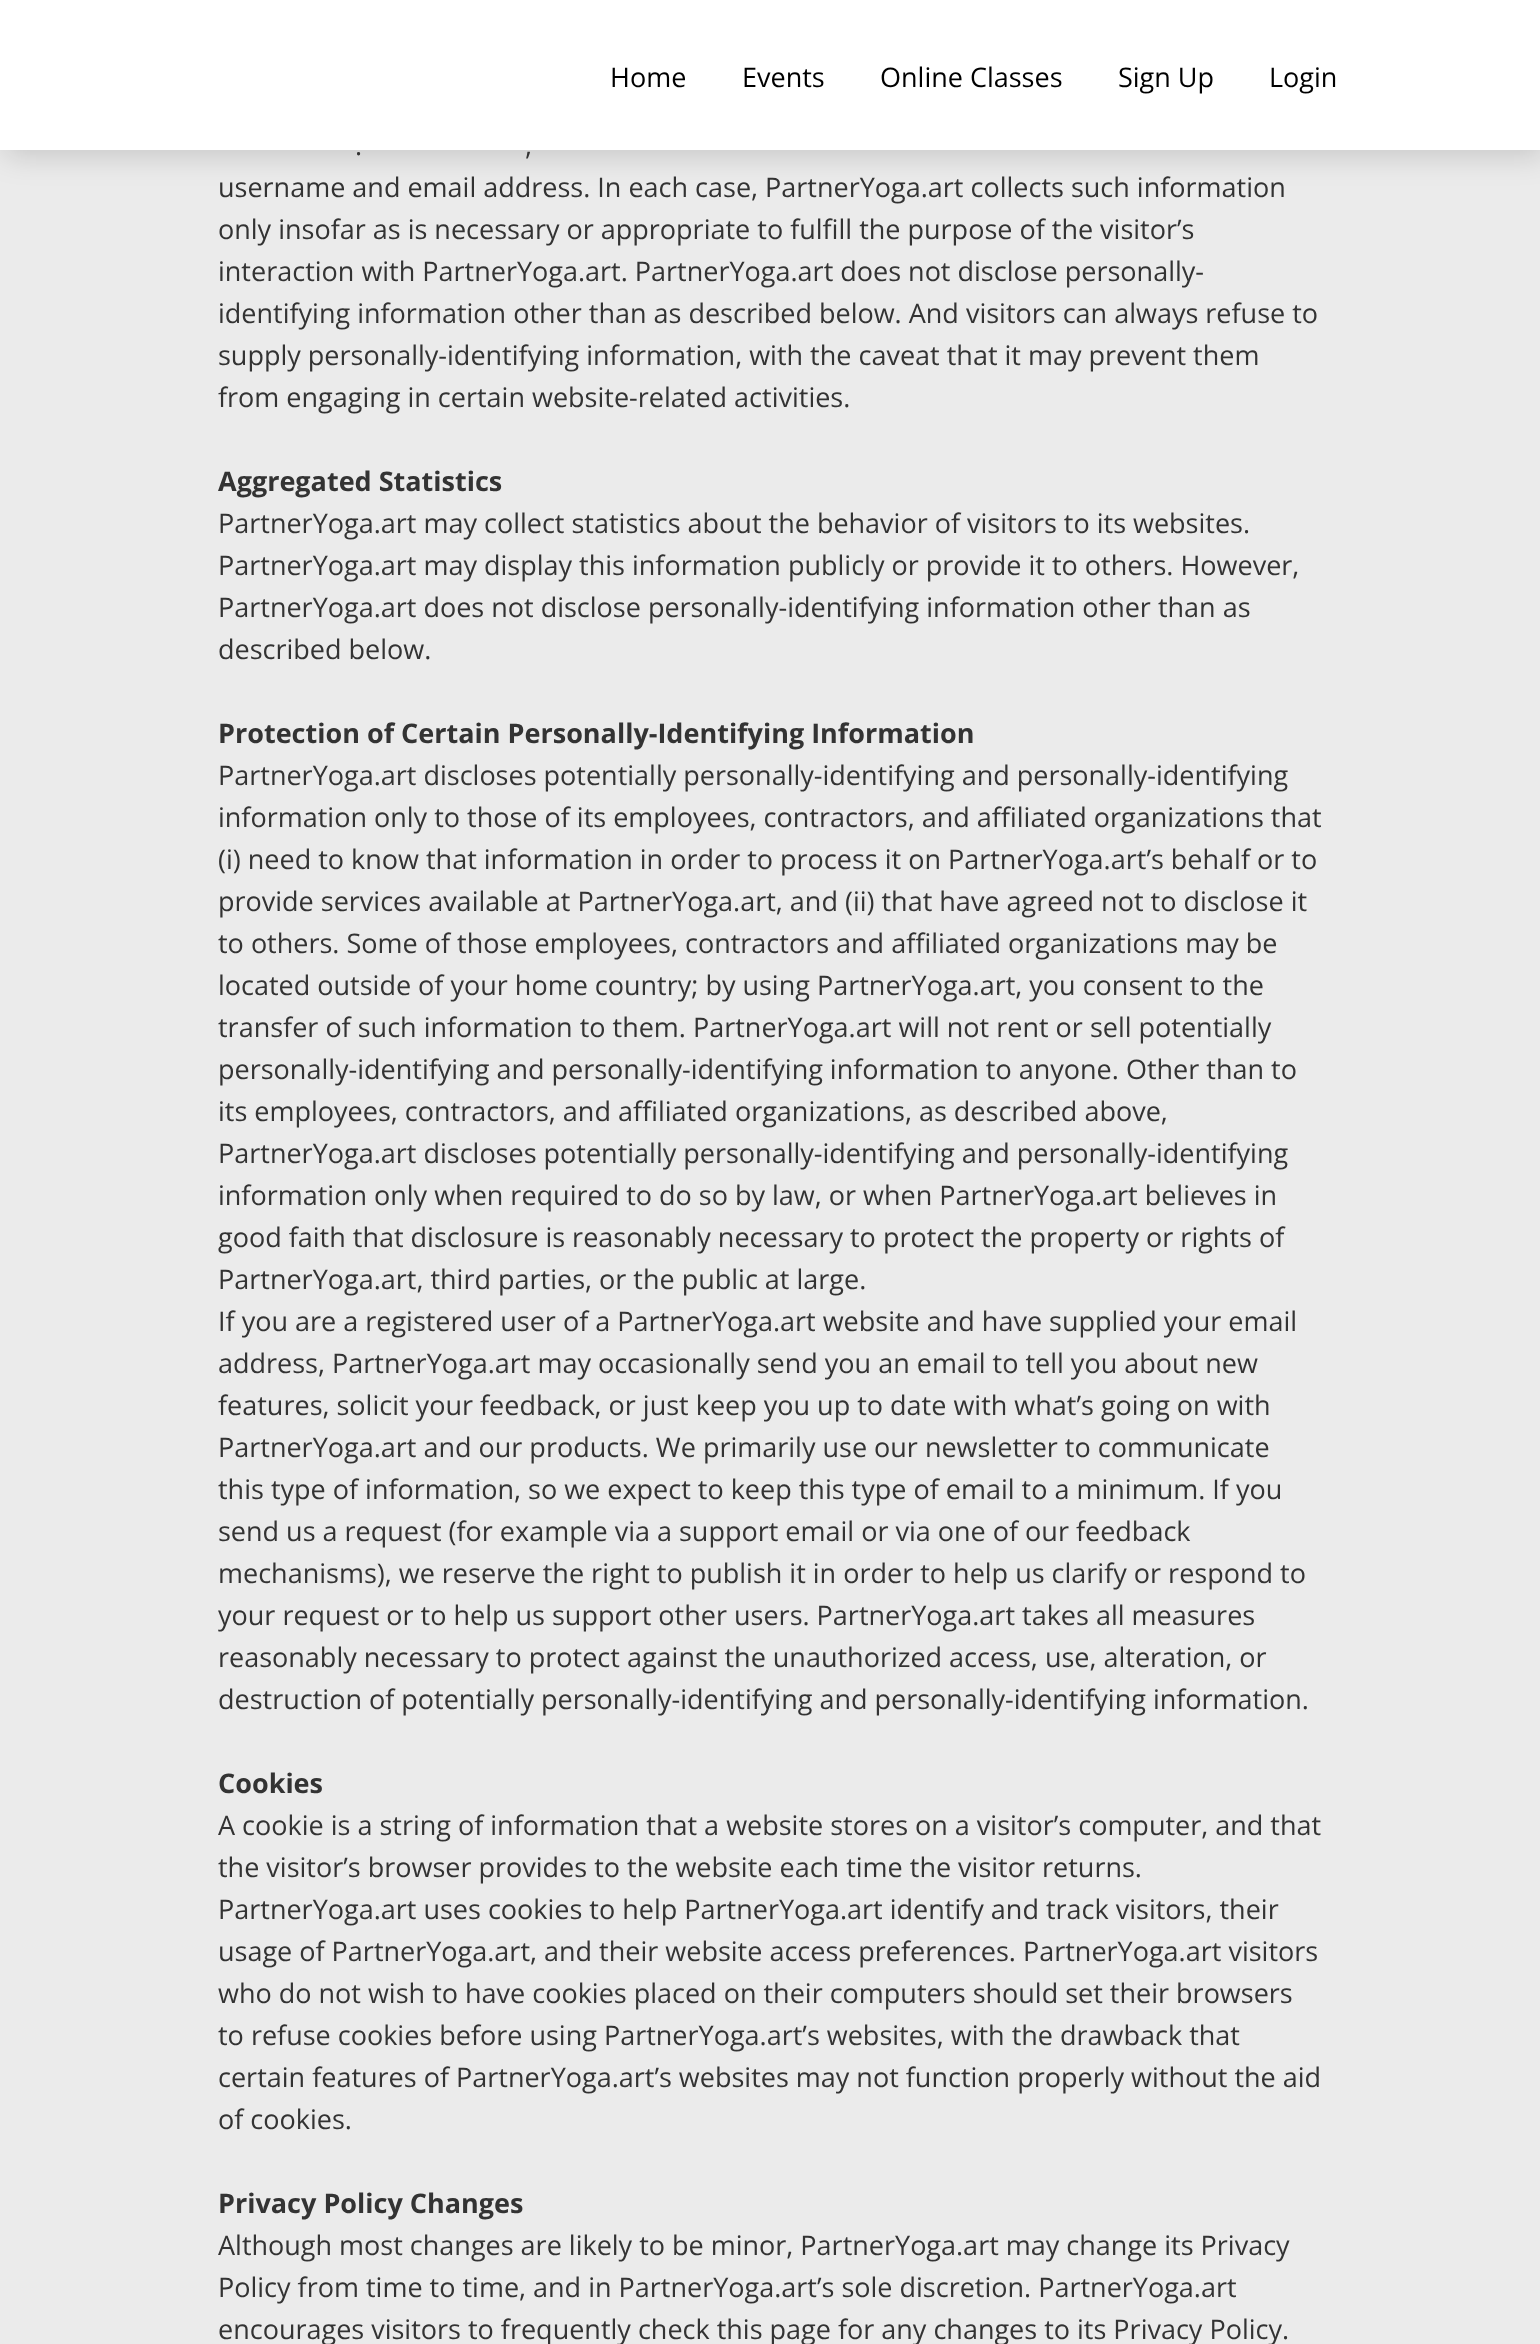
<svg xmlns="http://www.w3.org/2000/svg" width="1540" height="2344">
<rect width="100%" height="100%" fill="#ebebeb"/>
<rect x="5" y="5" width="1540" height="150" fill="#00000029" filter="blur(15px)"/>
<rect width="1540" height="150" fill="#fff"/>
<text x="610" y="87" style="font-family:Open Sans;font-size:27px;fill:#000">Home</text>
<text x="742" y="87" style="font-family:Open Sans;font-size:27px;fill:#000">Events</text>
<text x="880" y="87" style="font-family:Open Sans;font-size:27px;fill:#000">Online Classes</text>
<text x="1118" y="87" style="font-family:Open Sans;font-size:27px;fill:#000">Sign Up</text>
<text x="1269" y="87" style="font-family:Open Sans;font-size:27px;fill:#000">Login</text>
<text x="355" y="155" style="font-family:Open Sans;font-size:27px;fill:#333">.</text>
<text x="525" y="155" style="font-family:Open Sans;font-size:27px;fill:#333">,</text>
<text x="218" y="197" style="font-family:Open Sans;font-size:27px;fill:#333">username and email address. In each case, PartnerYoga.art collects such information</text>
<text x="218" y="239" style="font-family:Open Sans;font-size:27px;fill:#333">only insofar as is necessary or appropriate to fulfill the purpose of the visitor’s</text>
<text x="218" y="281" style="font-family:Open Sans;font-size:27px;fill:#333">interaction with PartnerYoga.art. PartnerYoga.art does not disclose personally-</text>
<text x="218" y="323" style="font-family:Open Sans;font-size:27px;fill:#333">identifying information other than as described below. And visitors can always refuse to</text>
<text x="218" y="365" style="font-family:Open Sans;font-size:27px;fill:#333">supply personally-identifying information, with the caveat that it may prevent them</text>
<text x="218" y="407" style="font-family:Open Sans;font-size:27px;fill:#333">from engaging in certain website-related activities.</text>
<text x="218" y="491" style="font-family:Open Sans;font-size:27px;font-weight:bold;fill:#333">Aggregated Statistics</text>
<text x="218" y="533" style="font-family:Open Sans;font-size:27px;fill:#333">PartnerYoga.art may collect statistics about the behavior of visitors to its websites.</text>
<text x="218" y="575" style="font-family:Open Sans;font-size:27px;fill:#333">PartnerYoga.art may display this information publicly or provide it to others. However,</text>
<text x="218" y="617" style="font-family:Open Sans;font-size:27px;fill:#333">PartnerYoga.art does not disclose personally-identifying information other than as</text>
<text x="218" y="659" style="font-family:Open Sans;font-size:27px;fill:#333">described below.</text>
<text x="218" y="743" style="font-family:Open Sans;font-size:27px;font-weight:bold;fill:#333">Protection of Certain Personally-Identifying Information</text>
<text x="218" y="785" style="font-family:Open Sans;font-size:27px;fill:#333">PartnerYoga.art discloses potentially personally-identifying and personally-identifying</text>
<text x="218" y="827" style="font-family:Open Sans;font-size:27px;fill:#333">information only to those of its employees, contractors, and affiliated organizations that</text>
<text x="218" y="869" style="font-family:Open Sans;font-size:27px;fill:#333">(i) need to know that information in order to process it on PartnerYoga.art’s behalf or to</text>
<text x="218" y="911" style="font-family:Open Sans;font-size:27px;fill:#333">provide services available at PartnerYoga.art, and (ii) that have agreed not to disclose it</text>
<text x="218" y="953" style="font-family:Open Sans;font-size:27px;fill:#333">to others. Some of those employees, contractors and affiliated organizations may be</text>
<text x="218" y="995" style="font-family:Open Sans;font-size:27px;fill:#333">located outside of your home country; by using PartnerYoga.art, you consent to the</text>
<text x="218" y="1037" style="font-family:Open Sans;font-size:27px;fill:#333">transfer of such information to them. PartnerYoga.art will not rent or sell potentially</text>
<text x="218" y="1079" style="font-family:Open Sans;font-size:27px;fill:#333">personally-identifying and personally-identifying information to anyone. Other than to</text>
<text x="218" y="1121" style="font-family:Open Sans;font-size:27px;fill:#333">its employees, contractors, and affiliated organizations, as described above,</text>
<text x="218" y="1163" style="font-family:Open Sans;font-size:27px;fill:#333">PartnerYoga.art discloses potentially personally-identifying and personally-identifying</text>
<text x="218" y="1205" style="font-family:Open Sans;font-size:27px;fill:#333">information only when required to do so by law, or when PartnerYoga.art believes in</text>
<text x="218" y="1247" style="font-family:Open Sans;font-size:27px;fill:#333">good faith that disclosure is reasonably necessary to protect the property or rights of</text>
<text x="218" y="1289" style="font-family:Open Sans;font-size:27px;fill:#333">PartnerYoga.art, third parties, or the public at large.</text>
<text x="218" y="1331" style="font-family:Open Sans;font-size:27px;fill:#333">If you are a registered user of a PartnerYoga.art website and have supplied your email</text>
<text x="218" y="1373" style="font-family:Open Sans;font-size:27px;fill:#333">address, PartnerYoga.art may occasionally send you an email to tell you about new</text>
<text x="218" y="1415" style="font-family:Open Sans;font-size:27px;fill:#333">features, solicit your feedback, or just keep you up to date with what’s going on with</text>
<text x="218" y="1457" style="font-family:Open Sans;font-size:27px;fill:#333">PartnerYoga.art and our products. We primarily use our newsletter to communicate</text>
<text x="218" y="1499" style="font-family:Open Sans;font-size:27px;fill:#333">this type of information, so we expect to keep this type of email to a minimum. If you</text>
<text x="218" y="1541" style="font-family:Open Sans;font-size:27px;fill:#333">send us a request (for example via a support email or via one of our feedback</text>
<text x="218" y="1583" style="font-family:Open Sans;font-size:27px;fill:#333">mechanisms), we reserve the right to publish it in order to help us clarify or respond to</text>
<text x="218" y="1625" style="font-family:Open Sans;font-size:27px;fill:#333">your request or to help us support other users. PartnerYoga.art takes all measures</text>
<text x="218" y="1667" style="font-family:Open Sans;font-size:27px;fill:#333">reasonably necessary to protect against the unauthorized access, use, alteration, or</text>
<text x="218" y="1709" style="font-family:Open Sans;font-size:27px;fill:#333">destruction of potentially personally-identifying and personally-identifying information.</text>
<text x="218" y="1793" style="font-family:Open Sans;font-size:27px;font-weight:bold;fill:#333">Cookies</text>
<text x="218" y="1835" style="font-family:Open Sans;font-size:27px;fill:#333">A cookie is a string of information that a website stores on a visitor’s computer, and that</text>
<text x="218" y="1877" style="font-family:Open Sans;font-size:27px;fill:#333">the visitor’s browser provides to the website each time the visitor returns.</text>
<text x="218" y="1919" style="font-family:Open Sans;font-size:27px;fill:#333">PartnerYoga.art uses cookies to help PartnerYoga.art identify and track visitors, their</text>
<text x="218" y="1961" style="font-family:Open Sans;font-size:27px;fill:#333">usage of PartnerYoga.art, and their website access preferences. PartnerYoga.art visitors</text>
<text x="218" y="2003" style="font-family:Open Sans;font-size:27px;fill:#333">who do not wish to have cookies placed on their computers should set their browsers</text>
<text x="218" y="2045" style="font-family:Open Sans;font-size:27px;fill:#333">to refuse cookies before using PartnerYoga.art’s websites, with the drawback that</text>
<text x="218" y="2087" style="font-family:Open Sans;font-size:27px;fill:#333">certain features of PartnerYoga.art’s websites may not function properly without the aid</text>
<text x="218" y="2129" style="font-family:Open Sans;font-size:27px;fill:#333">of cookies.</text>
<text x="218" y="2213" style="font-family:Open Sans;font-size:27px;font-weight:bold;fill:#333">Privacy Policy Changes</text>
<text x="218" y="2255" style="font-family:Open Sans;font-size:27px;fill:#333">Although most changes are likely to be minor, PartnerYoga.art may change its Privacy</text>
<text x="218" y="2297" style="font-family:Open Sans;font-size:27px;fill:#333">Policy from time to time, and in PartnerYoga.art’s sole discretion. PartnerYoga.art</text>
<text x="218" y="2339" style="font-family:Open Sans;font-size:27px;fill:#333">encourages visitors to frequently check this page for any changes to its Privacy Policy.</text>
</svg>
